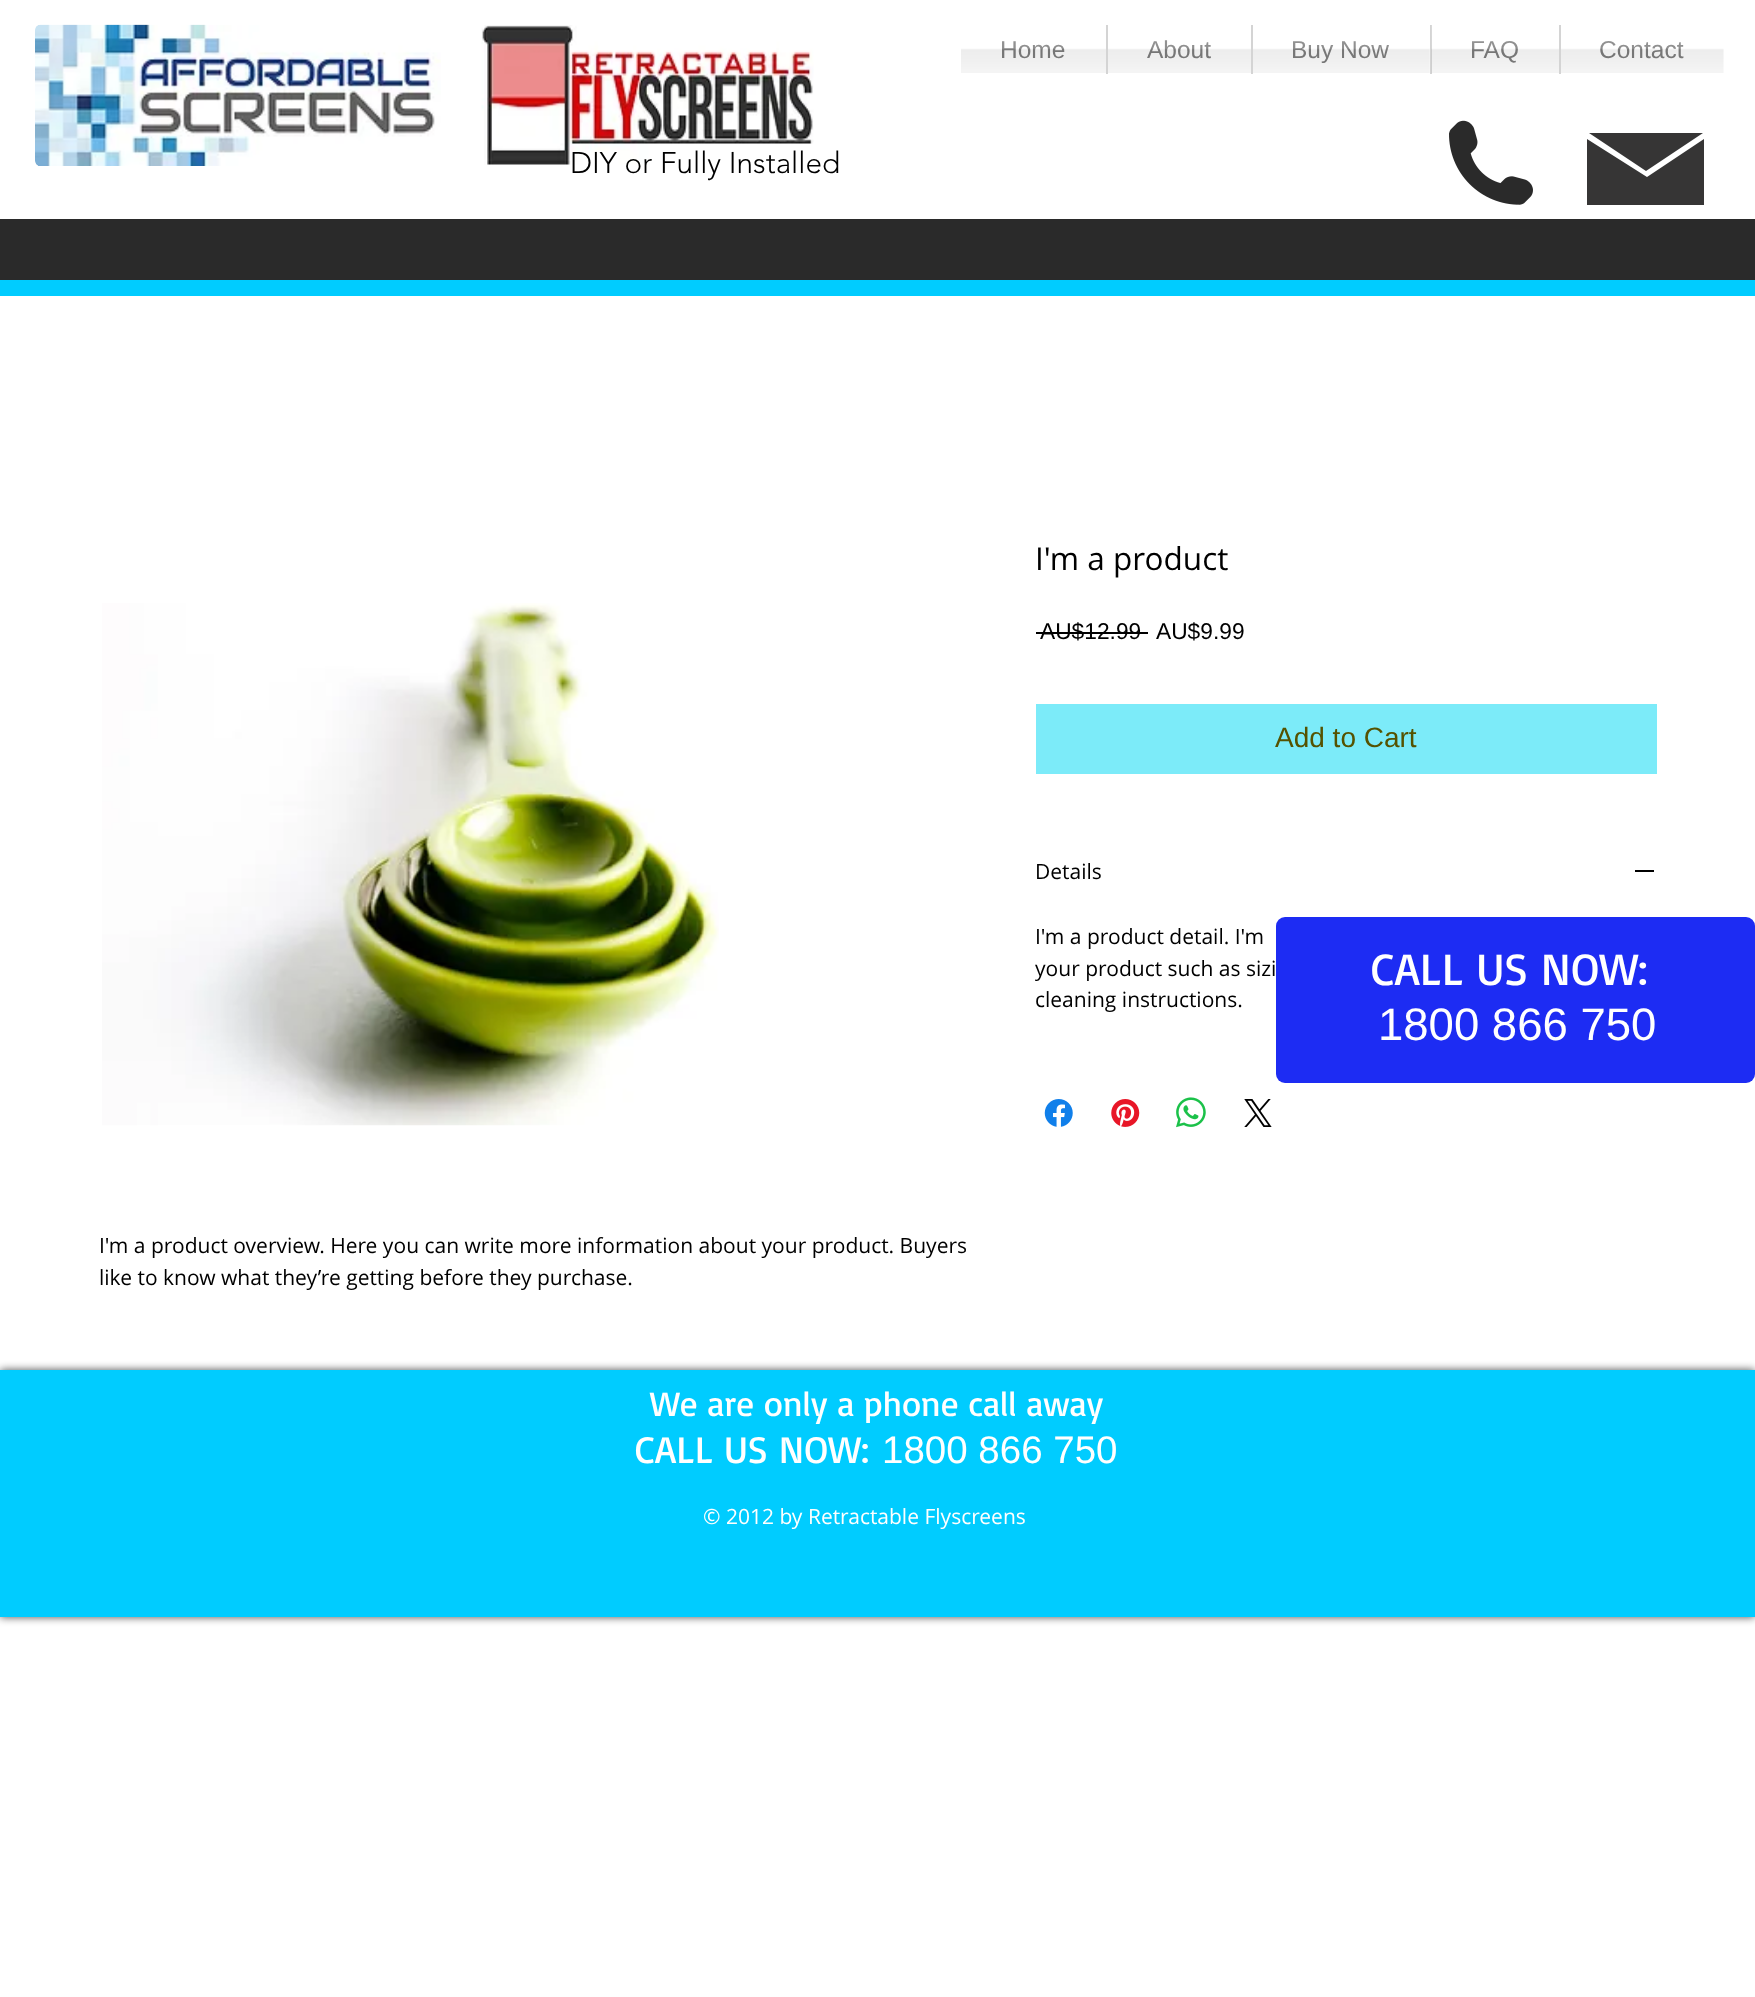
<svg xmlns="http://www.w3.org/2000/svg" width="1755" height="1997">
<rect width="100%" height="100%" fill="#fff"/>
<image x="35" y="24" width="406" height="142" href="media/1.png"/>
<image x="481" y="25" width="333" height="140" href="media/2.png"/>
<text x="1000" y="58" style="font-family:Liberation Sans;font-size:24.5px;fill:#7f7f7f">Home</text>
<image x="961" y="41" width="145" height="32" href="media/3.png"/>
<rect x="1106" y="25" width="2" height="49" fill="#d4d4d4"/>
<text x="1147" y="58" style="font-family:Liberation Sans;font-size:24.5px;fill:#7f7f7f">About</text>
<image x="1108" y="40" width="143" height="33" href="media/4.png"/>
<rect x="1251" y="25" width="2" height="49" fill="#d4d4d4"/>
<text x="1291" y="58" style="font-family:Liberation Sans;font-size:24.5px;fill:#7f7f7f">Buy Now</text>
<image x="1253" y="41" width="177" height="32" href="media/5.png"/>
<rect x="1430" y="25" width="2" height="49" fill="#d4d4d4"/>
<text x="1470" y="58" style="font-family:Liberation Sans;font-size:24.5px;fill:#7f7f7f">FAQ</text>
<image x="1431" y="25" width="128" height="48" href="media/6.png"/>
<rect x="1559" y="25" width="2" height="49" fill="#d4d4d4"/>
<text x="1599" y="58" style="font-family:Liberation Sans;font-size:24.5px;fill:#7f7f7f">Contact</text>
<image x="1561" y="41" width="163" height="32" href="media/7.png"/>
<text x="570" y="173" style="font-family:'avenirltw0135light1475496';font-size:29.75px;font-weight:300;fill:#000">DIY or Fully Installed</text>
<image x="1449" y="120" width="84" height="85" href="media/8.png"/>
<path d="M1646 171l-57-38h114zm58-32l-57 38l-60-38v66h117z" fill="#363535"/>
<rect y="219" width="1755" height="61" fill="#2a2a2a"/>
<rect y="280" width="1755" height="16" fill="#0cf"/>
<text x="1035" y="570" style="font-family:Open Sans;font-size:31.5px;fill:#000">I'm a product</text>
<text x="1040" y="639" style="font-family:Liberation Sans;font-size:22.75px;fill:#000">AU$12.99</text>
<rect x="1036" y="632" width="112" height="2" fill="#000"/>
<text x="1156" y="639" style="font-family:Liberation Sans;font-size:22.75px;fill:#000">AU$9.99</text>
<rect x="1036" y="704" width="621" height="70" fill="#7cebf9"/>
<text x="1275" y="747" style="font-family:Liberation Sans;font-size:28px;fill:#555200">Add to Cart</text>
<text x="1035" y="879" style="font-family:Open Sans;font-size:21px;fill:#000">Details</text>
<rect x="1635" y="870" width="19" height="2" fill="#000"/>
<text x="1035" y="944" style="font-family:Open Sans;font-size:21px;fill:#000">I'm a product detail. I'm</text>
<text x="1035" y="976" style="font-family:Open Sans;font-size:21px;fill:#000">your product such as sizi</text>
<text x="1035" y="1007" style="font-family:Open Sans;font-size:21px;fill:#000">cleaning instructions.</text>
<image x="1044" y="1099" width="29" height="28" href="media/9.png"/>
<image x="1111" y="1099" width="29" height="28" href="media/10.png"/>
<image x="1176" y="1097" width="30" height="31" href="media/11.png"/>
<image x="1244" y="1099" width="28" height="28" href="media/12.png"/>
<image x="102" y="603" width="617" height="523" href="media/13.png"/>
<text x="99" y="1253" style="font-family:Open Sans;font-size:21px;fill:#000">I'm a product overview. Here you can write more information about your product. Buyers</text>
<text x="99" y="1285" style="font-family:Open Sans;font-size:21px;fill:#000">like to know what they’re getting before they purchase.</text>
<rect x="1276" y="917" width="479" height="166" rx="9" fill="#1d2cf3"/>
<text x="1371" y="985" style="font-family:Basic;font-size:45.5px;fill:#fff">CALL US NOW:</text>
<text x="1378" y="1040" style="font-family:Liberation Sans;font-size:45.5px;fill:#fff">1800 866 750</text>
<rect y="1370" width="1755" height="247" fill="#000000b3" filter="blur(4.5px)"/>
<rect y="1370" width="1755" height="247" fill="#0cf"/>
<text x="650" y="1416" style="font-family:Basic;font-size:35px;fill:#fff">We are only a phone call away</text>
<text x="635" y="1463" style="font-family:Basic;font-size:38.5px;fill:#fff">CALL US NOW:</text>
<text x="882" y="1463" style="font-family:Liberation Sans;font-size:38.5px;fill:#fff">1800 866 750</text>
<text x="703" y="1524" style="font-family:Open Sans;font-size:21px;fill:#fff">© 2012 by Retractable Flyscreens</text>
</svg>
